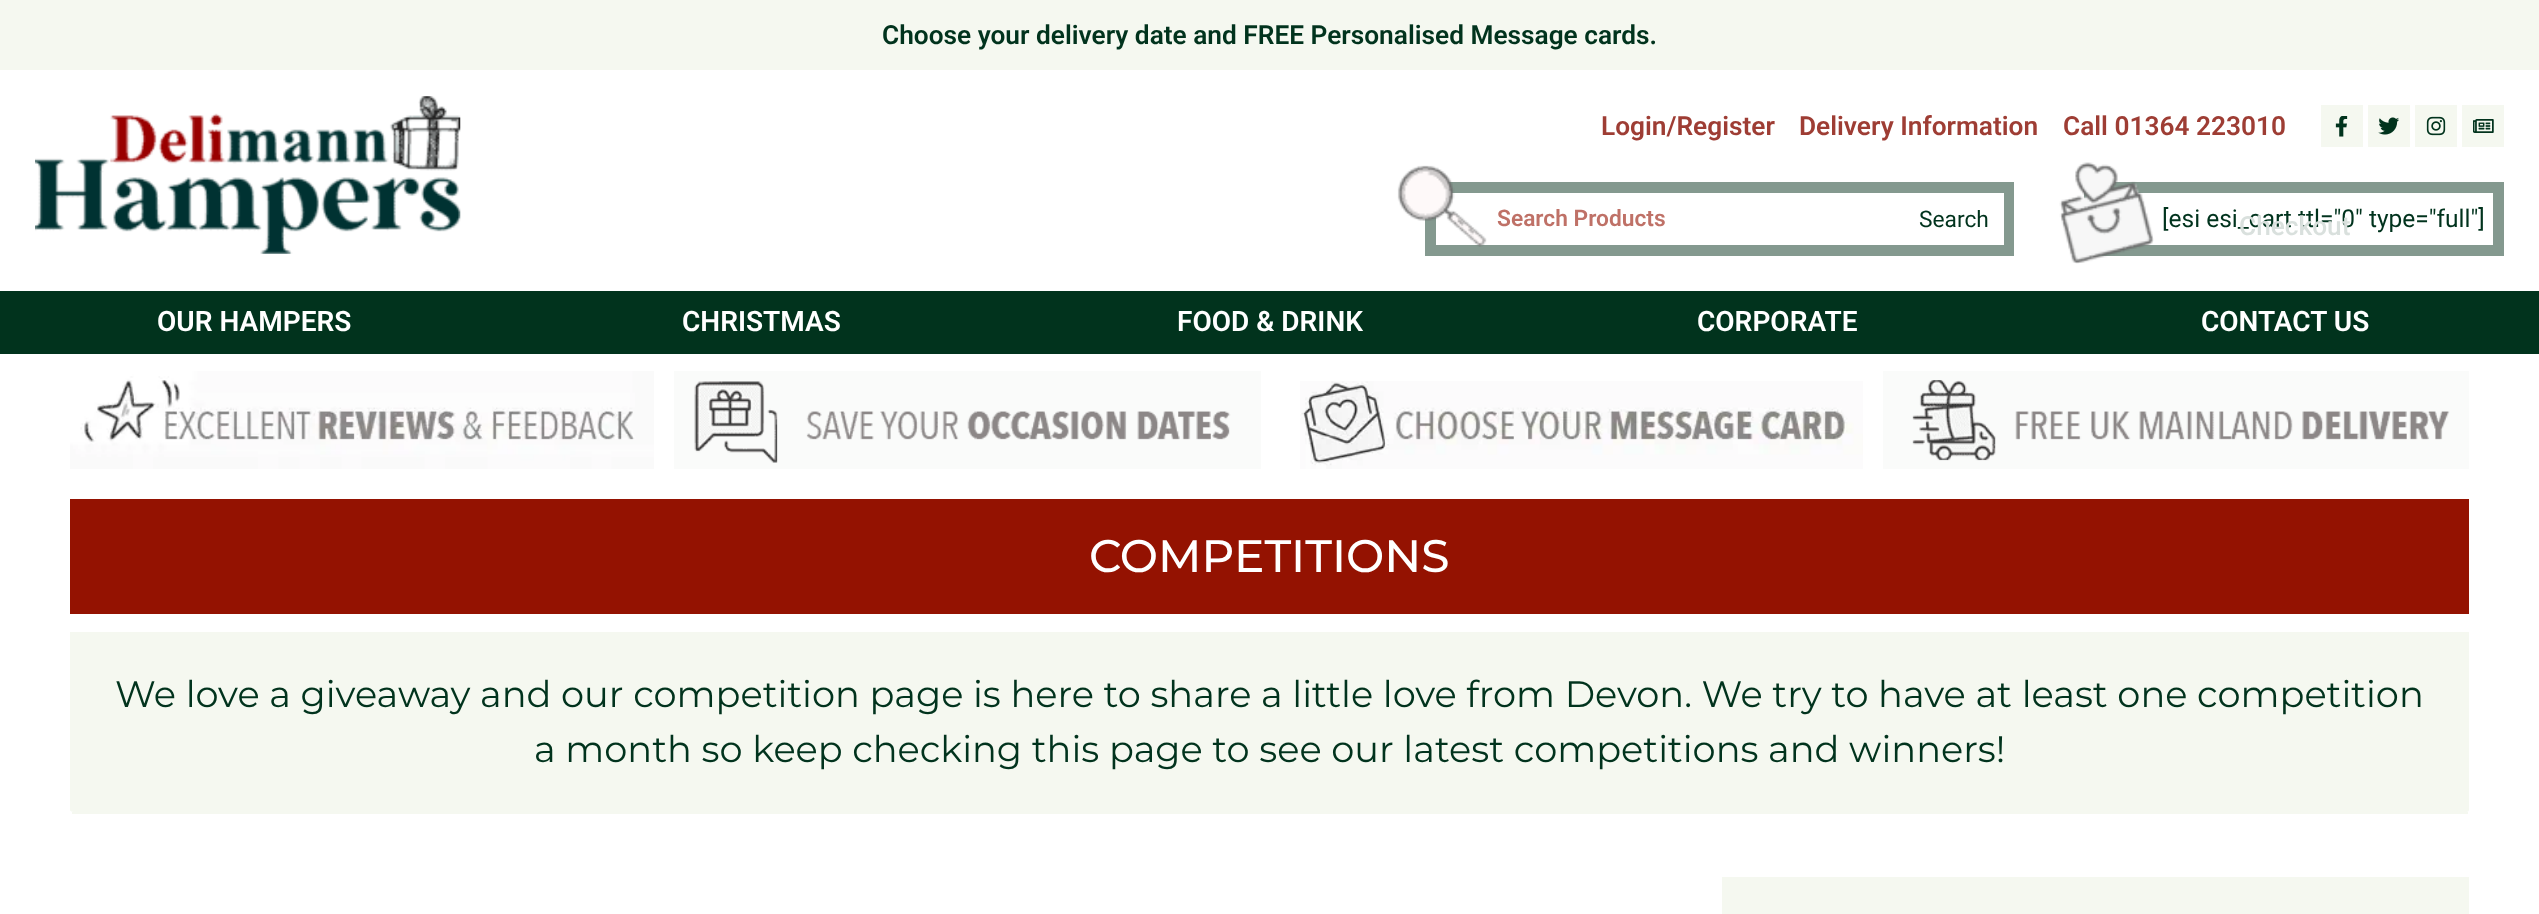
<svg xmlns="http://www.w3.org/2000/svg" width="2539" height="914">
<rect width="100%" height="100%" fill="#fff"/>
<rect width="2539" height="70" fill="#f5f8f0"/>
<text x="882" y="44" style="font-family:Roboto;font-size:26.25px;font-weight:600;fill:#01331d">Choose your delivery date and FREE Personalised Message cards.</text>
<image x="35" y="96" width="426" height="158" href="media/1.png"/>
<text x="1601" y="135" style="font-family:Roboto;font-size:26.25px;font-weight:600;fill:#9e3d34">Login/Register</text>
<text x="1799" y="135" style="font-family:Roboto;font-size:26.25px;font-weight:600;fill:#9e3d34">Delivery Information</text>
<text x="2063" y="135" style="font-family:Roboto;font-size:26.25px;font-weight:600;fill:#9e3d34">Call 01364 223010</text>
<rect x="2321" y="105" width="42" height="42" fill="#f5f8f0"/>
<image x="2335" y="116" width="13" height="21" href="media/2.png"/>
<rect x="2368" y="105" width="42" height="42" fill="#f5f8f0"/>
<image x="2378" y="117" width="21" height="18" href="media/3.png"/>
<rect x="2415" y="105" width="42" height="42" fill="#f5f8f0"/>
<image x="2426" y="116" width="20" height="20" href="media/4.png"/>
<rect x="2462" y="105" width="42" height="42" fill="#f5f8f0"/>
<image x="2473" y="119" width="21" height="14" href="media/5.png"/>
<rect x="1430.5" y="187.5" width="578" height="63" fill="none" stroke="#84998f" stroke-width="11"/>
<image x="1397" y="165" width="90" height="82" href="media/6.png"/>
<rect x="2003" y="193" width="1" height="52" fill="#fff"/>
<text x="1497" y="226" style="font-family:Roboto;font-size:22.75px;font-weight:600;fill:#bf7167">Search Products</text>
<text x="1919" y="227" style="font-family:Roboto;font-size:22.75px;fill:#01331d">Search</text>
<rect x="2089.5" y="187.5" width="409" height="63" fill="none" stroke="#84998f" stroke-width="11"/>
<image x="2059" y="162" width="95" height="102" href="media/7.png"/>
<text x="2162" y="227" style="font-family:Roboto;font-size:24.5px;fill:#01331d">[esi esi_cart ttl="0" type="full"]</text>
<text x="2239" y="235" style="font-family:Roboto;font-size:26.25px;font-weight:500;fill:#d9e0dd">Checkout</text>
<rect y="291" width="2539" height="63" fill="#01331d"/>
<text x="157" y="331" style="font-family:Roboto;font-size:28px;font-weight:600;fill:#fff">OUR HAMPERS</text>
<text x="682" y="331" style="font-family:Roboto;font-size:28px;font-weight:600;fill:#fff">CHRISTMAS</text>
<text x="1177" y="331" style="font-family:Roboto;font-size:28px;font-weight:600;fill:#fff">FOOD &amp; DRINK</text>
<text x="1697" y="331" style="font-family:Roboto;font-size:28px;font-weight:600;fill:#fff">CORPORATE</text>
<text x="2201" y="331" style="font-family:Roboto;font-size:28px;font-weight:600;fill:#fff">CONTACT US</text>
<image x="70" y="371" width="584" height="98" href="media/8.png"/>
<image x="674" y="371" width="587" height="98" href="media/9.png"/>
<image x="1300" y="381" width="563" height="88" href="media/10.png"/>
<image x="1883" y="371" width="586" height="98" href="media/11.png"/>
<rect x="70" y="499" width="2399" height="115" fill="#941201"/>
<text x="1089" y="572" style="font-family:Montserrat;font-size:45.5px;font-weight:500;fill:#fff">COMPETITIONS</text>
<path d="M70 632h2399v178c0 1-1 2-3 2h-2392c-2 0-4-1-4-2z" fill="#f5f8f0"/>
<rect x="72" y="812" width="2396" height="2" fill="#f5f8f0"/>
<text x="115" y="707" style="font-family:Montserrat;font-size:36.75px;fill:#01331d">We love a giveaway and our competition page is here to share a little love from Devon. We try to have at least one competition</text>
<text x="534" y="762" style="font-family:Montserrat;font-size:36.75px;fill:#01331d">a month so keep checking this page to see our latest competitions and winners!</text>
<rect x="1722" y="877" width="747" height="37" fill="#f5f8f0"/>
</svg>
